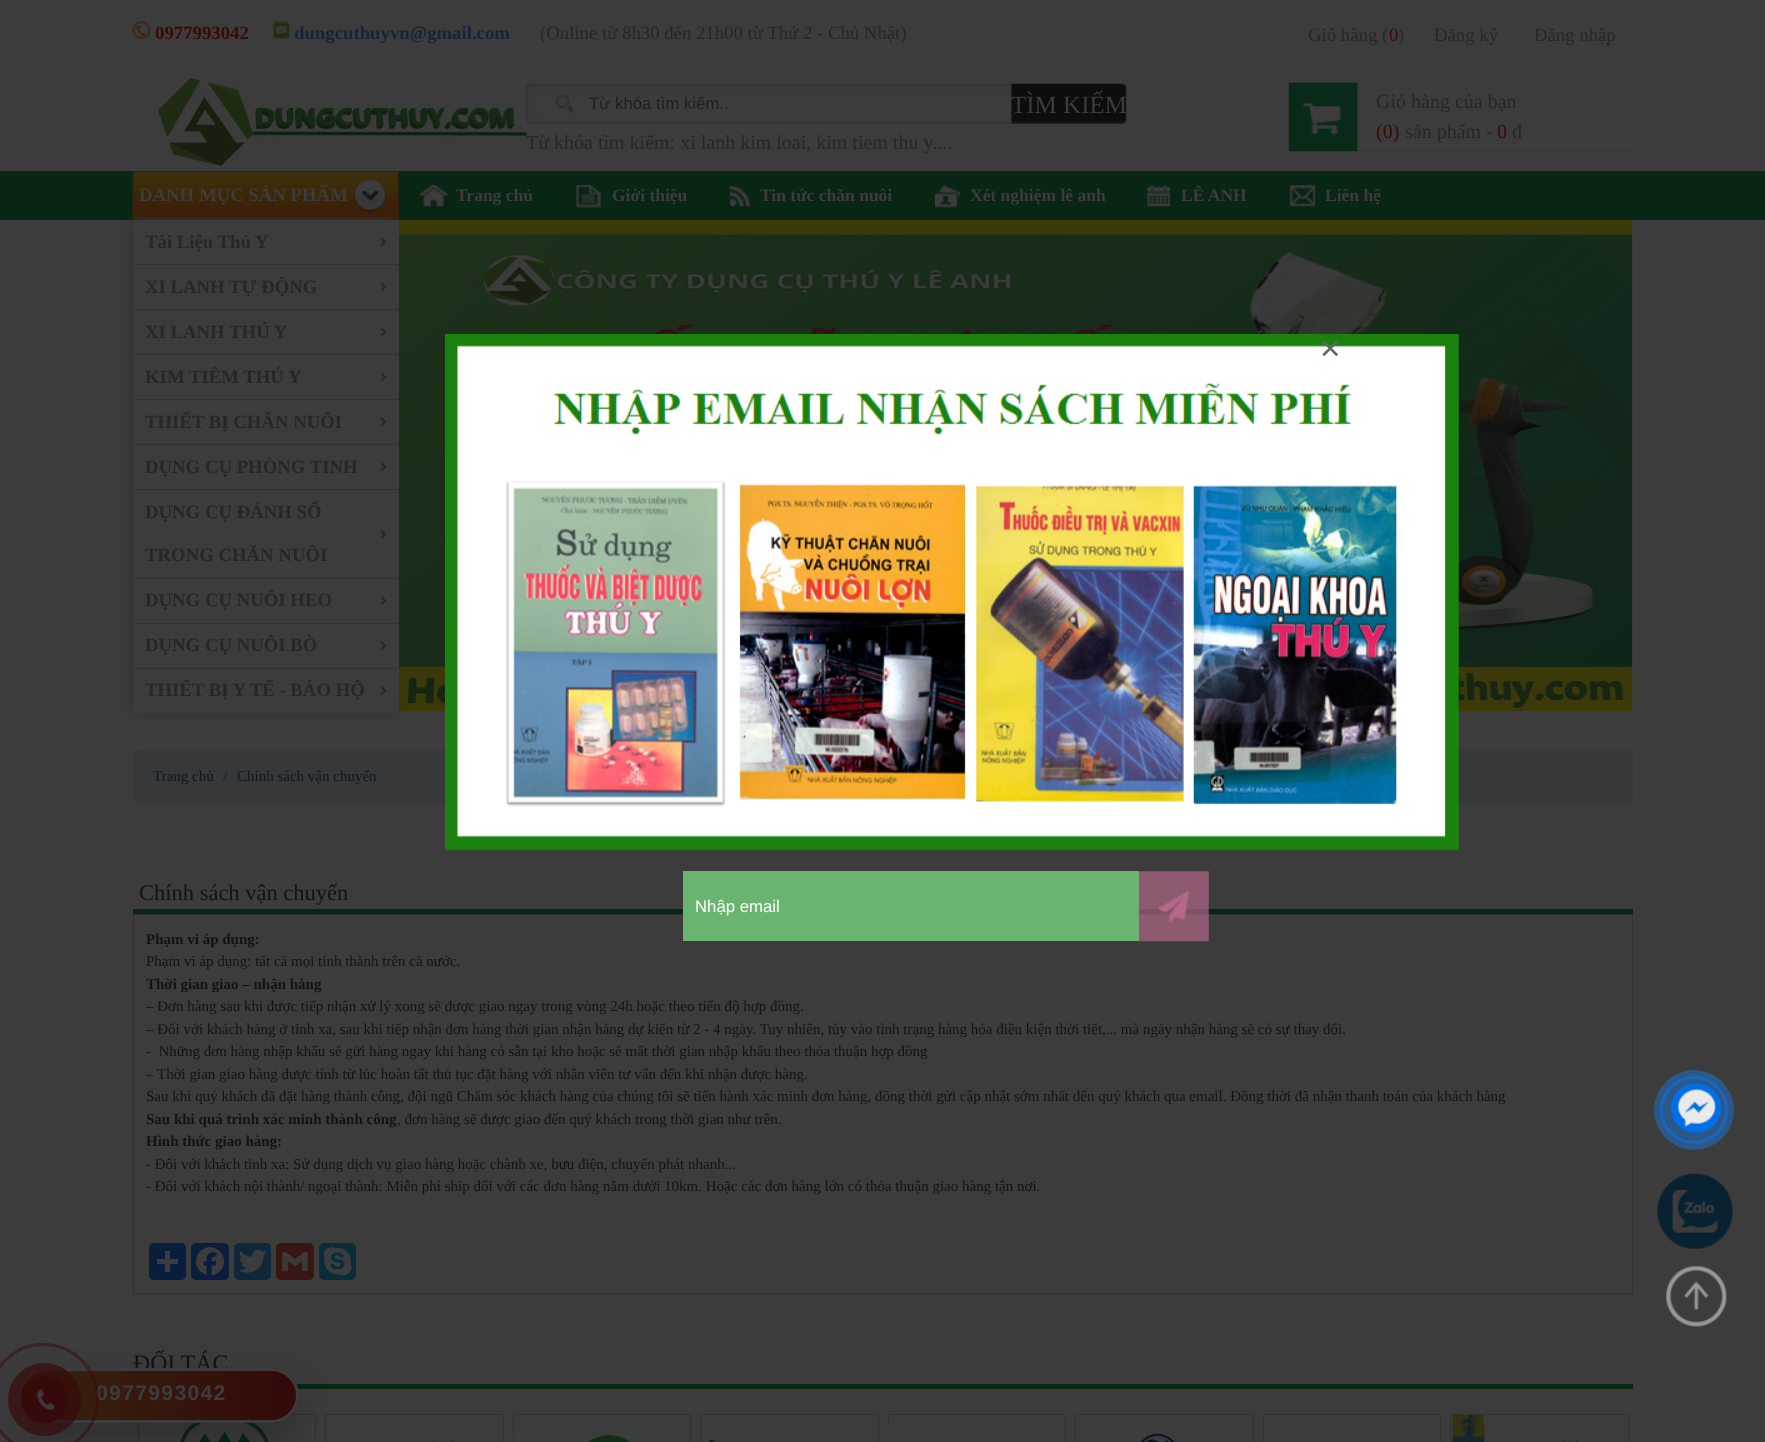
<svg xmlns="http://www.w3.org/2000/svg" width="1765" height="1442">
<defs>
<clipPath id="clip1"><rect x="1011" y="84" width="115" height="40"/></clipPath>
<clipPath id="clip2"><rect x="19" y="1368" width="280" height="55" rx="27.5"/></clipPath>
<linearGradient id="g1" gradientUnits="userSpaceOnUse" x1="21" y1="1395" x2="296" y2="1395"><stop offset="0" stop-color="#372410"/><stop offset="1" stop-color="#330909"/></linearGradient>
</defs>
<rect width="100%" height="100%" fill="#3c3c3c"/>
<image x="132" y="21" width="18" height="18" href="media/1.png"/>
<text x="155" y="39" style="font-family:Liberation Serif;font-size:18.75px;font-weight:bold;fill:#3c0909">0977993042</text>
<image x="272" y="21" width="18" height="18" href="media/2.png"/>
<text x="294" y="39" style="font-family:Liberation Serif;font-size:18.75px;font-weight:bold;fill:#16233a">dungcuthuyvn@gmail.com</text>
<text x="540" y="39" style="font-family:Liberation Serif;font-size:18.75px;fill:#272727">(Online từ 8h30 đến 21h00 từ Thứ 2 - Chủ Nhật)</text>
<text x="1308" y="41" style="font-family:Liberation Serif;font-size:18.75px;fill:#272727">Giỏ hàng (</text>
<text x="1389" y="41" style="font-family:Liberation Serif;font-size:18.75px;fill:#3c0909">0</text>
<text x="1398" y="41" style="font-family:Liberation Serif;font-size:18.75px;fill:#272727">)</text>
<text x="1434" y="41" style="font-family:Liberation Serif;font-size:18.75px;fill:#272727">Đăng ký</text>
<text x="1534" y="41" style="font-family:Liberation Serif;font-size:18.75px;fill:#272727">Đăng nhập</text>
<image x="133" y="60" width="413" height="107" href="media/3.png"/>
<image x="526" y="83" width="601" height="41" href="media/4.png"/>
<text x="589" y="109" style="font-family:Liberation Sans;font-size:16.75px;fill:#202020">Từ khóa tìm kiếm..</text>
<g clip-path="url(#clip1)">
<text x="1011" y="113" style="font-family:Liberation Serif;font-size:25px;fill:#3c3c3c">TÌM KIẾM</text>
</g>
<text x="526" y="149" style="font-family:Liberation Serif;font-size:20px;fill:#272727">Từ khóa tìm kiếm: xi lanh kim loai, kim tiem thu y....</text>
<image x="1288" y="82" width="345" height="70" href="media/5.png"/>
<text x="1376" y="108" style="font-family:Liberation Serif;font-size:20px;fill:#272727">Giỏ hàng của bạn</text>
<text x="1376" y="138" style="font-family:Liberation Serif;font-size:20px;fill:#3c0909">(0)</text>
<text x="1405" y="138" style="font-family:Liberation Serif;font-size:20px;fill:#272727">sản phẩm -</text>
<text x="1497" y="138" style="font-family:Liberation Serif;font-size:20px;fill:#3c0909">0</text>
<text x="1512" y="138" style="font-family:Liberation Serif;font-size:20px;fill:#272727">đ</text>
<rect y="171" width="1765" height="49" fill="#092615"/>
<image x="132" y="171" width="267" height="49" href="media/6.png"/>
<text x="139" y="201" style="font-family:Liberation Serif;font-size:18.75px;font-weight:bold;fill:#3c3c3c">DANH MỤC SẢN PHẨM</text>
<image x="420" y="185" width="28" height="22" href="media/7.png"/>
<text x="456" y="201" style="font-family:Liberation Serif;font-size:17.5px;font-weight:bold;fill:#3c3c3c">Trang chủ</text>
<image x="576" y="185" width="27" height="23" href="media/8.png"/>
<text x="612" y="201" style="font-family:Liberation Serif;font-size:17.5px;font-weight:bold;fill:#3c3c3c">Giới thiệu</text>
<image x="730" y="186" width="22" height="22" href="media/9.png"/>
<text x="760" y="201" style="font-family:Liberation Serif;font-size:17.5px;font-weight:bold;fill:#3c3c3c">Tin tức chăn nuôi</text>
<image x="935" y="185" width="27" height="23" href="media/10.png"/>
<text x="970" y="201" style="font-family:Liberation Serif;font-size:17.5px;font-weight:bold;fill:#3c3c3c">Xét nghiệm lê anh</text>
<image x="1147" y="185" width="25" height="23" href="media/11.png"/>
<text x="1181" y="201" style="font-family:Liberation Serif;font-size:17.5px;font-weight:bold;fill:#3c3c3c">LÊ ANH</text>
<image x="1290" y="185" width="27" height="23" href="media/12.png"/>
<text x="1325" y="201" style="font-family:Liberation Serif;font-size:17.5px;font-weight:bold;fill:#3c3c3c">Liên hệ</text>
<rect x="131" y="221" width="267" height="493" fill="#323232" filter="blur(5px)"/>
<rect x="133" y="220" width="266" height="493" fill="#3c3c3c"/>
<rect x="133" y="264" width="266" height="1" fill="#323232"/>
<image x="381" y="237" width="6" height="10" href="media/13.png"/>
<text x="145" y="248" style="font-family:Liberation Serif;font-size:18.75px;font-weight:bold;fill:#272727">Tài Liệu Thú Y</text>
<rect x="133" y="309" width="266" height="1" fill="#323232"/>
<image x="381" y="282" width="6" height="10" href="media/13.png"/>
<text x="145" y="293" style="font-family:Liberation Serif;font-size:18.75px;font-weight:bold;fill:#272727">XI LANH TỰ ĐỘNG</text>
<rect x="133" y="354" width="266" height="1" fill="#323232"/>
<image x="381" y="327" width="6" height="10" href="media/13.png"/>
<text x="145" y="338" style="font-family:Liberation Serif;font-size:18.75px;font-weight:bold;fill:#272727">XI LANH THÚ Y</text>
<rect x="133" y="399" width="266" height="1" fill="#323232"/>
<image x="381" y="372" width="6" height="10" href="media/13.png"/>
<text x="145" y="383" style="font-family:Liberation Serif;font-size:18.75px;font-weight:bold;fill:#272727">KIM TIÊM THÚ Y</text>
<rect x="133" y="444" width="266" height="1" fill="#323232"/>
<image x="381" y="417" width="6" height="10" href="media/13.png"/>
<text x="145" y="428" style="font-family:Liberation Serif;font-size:18.75px;font-weight:bold;fill:#272727">THIẾT BỊ CHĂN NUÔI</text>
<rect x="133" y="489" width="266" height="1" fill="#323232"/>
<image x="381" y="462" width="6" height="10" href="media/13.png"/>
<text x="145" y="473" style="font-family:Liberation Serif;font-size:18.75px;font-weight:bold;fill:#272727">DỤNG CỤ PHÒNG TINH</text>
<rect x="133" y="578" width="266" height="1" fill="#323232"/>
<image x="381" y="530" width="6" height="9" href="media/14.png"/>
<text x="145" y="518" style="font-family:Liberation Serif;font-size:18.75px;font-weight:bold;fill:#272727">DỤNG CỤ ĐÁNH SỐ</text>
<text x="145" y="561" style="font-family:Liberation Serif;font-size:18.75px;font-weight:bold;fill:#272727">TRONG CHĂN NUÔI</text>
<rect x="133" y="623" width="266" height="1" fill="#323232"/>
<image x="381" y="596" width="6" height="9" href="media/15.png"/>
<text x="145" y="606" style="font-family:Liberation Serif;font-size:18.75px;font-weight:bold;fill:#272727">DỤNG CỤ NUÔI HEO</text>
<rect x="133" y="668" width="266" height="1" fill="#323232"/>
<image x="381" y="641" width="6" height="9" href="media/15.png"/>
<text x="145" y="651" style="font-family:Liberation Serif;font-size:18.75px;font-weight:bold;fill:#272727">DỤNG CỤ NUÔI BÒ</text>
<image x="381" y="686" width="6" height="9" href="media/15.png"/>
<text x="145" y="696" style="font-family:Liberation Serif;font-size:18.75px;font-weight:bold;fill:#272727">THIẾT BỊ Y TẾ - BẢO HỘ</text>
<image x="399" y="220" width="1234" height="491" href="media/16.png"/>
<rect x="133" y="750" width="1500" height="53" rx="5" fill="#373839"/>
<image x="445" y="334" width="1014" height="517" href="media/17.png"/>
<text x="1320" y="360" style="font-family:Liberation Sans;font-size:35px;fill:#5a6958">×</text>
<rect x="133" y="909" width="1500" height="5" fill="#092615"/>
<rect x="133.5" y="914.5" width="1499" height="379" fill="none" stroke="#323232"/>
<rect x="683" y="871" width="456" height="70" fill="#69b570"/>
<text x="695" y="912" style="font-family:Liberation Sans;font-size:16.75px;fill:#fff">Nhập email</text>
<image x="1138" y="871" width="71" height="71" href="media/18.png"/>
<text x="153" y="781" style="font-family:Liberation Serif;font-size:15px;fill:#0a1825">Trang chủ</text>
<text x="223" y="781" style="font-family:Liberation Serif;font-size:15px;fill:#202020">/</text>
<text x="237" y="781" style="font-family:Liberation Serif;font-size:15px;fill:#0a1825">Chính sách vận chuyển</text>
<text x="139" y="900" style="font-family:Liberation Serif;font-size:22.5px;fill:#131313">Chính sách vận chuyển</text>
<text x="146" y="944" style="font-family:Liberation Serif;font-size:15px;font-weight:bold;fill:#131313">Phạm vi áp dụng:</text>
<text x="146" y="966" style="font-family:Liberation Serif;font-size:15px;fill:#131313">Phạm vi áp dụng: tất cả mọi tỉnh thành trên cả nước.</text>
<text x="146" y="989" style="font-family:Liberation Serif;font-size:15px;font-weight:bold;fill:#131313">Thời gian giao – nhận hàng</text>
<text x="146" y="1011" style="font-family:Liberation Serif;font-size:15px;fill:#131313">– Đơn hàng sau khi được tiếp nhận xử lý xong sẽ được giao ngay trong vòng 24h hoặc theo tiến độ hợp đồng.</text>
<text x="146" y="1034" style="font-family:Liberation Serif;font-size:15px;fill:#131313">– Đối với khách hàng ở tỉnh xa, sau khi tiếp nhận đơn hàng thời gian nhận hàng dự kiến từ 2 - 4 ngày. Tuy nhiên, tùy vào tình trạng hàng hóa điều kiện thời tiết,... mà ngày nhận hàng sẽ có sự thay đổi.</text>
<text x="146" y="1056" style="font-family:Liberation Serif;font-size:15px;fill:#131313" xml:space="preserve">-  Những đơn hàng nhập khẩu sẽ gửi hàng ngay khi hàng có sẵn tại kho hoặc sẽ mất thời gian nhập khẩu theo thỏa thuận hợp đồng</text>
<text x="146" y="1079" style="font-family:Liberation Serif;font-size:15px;fill:#131313">– Thời gian giao hàng được tính từ lúc hoàn tất thủ tục đặt hàng với nhân viên tư vấn đến khi nhận được hàng.</text>
<text x="146" y="1101" style="font-family:Liberation Serif;font-size:15px;fill:#131313">Sau khi quý khách đã đặt hàng thành công, đội ngũ Chăm sóc khách hàng của chúng tôi sẽ tiến hành xác minh đơn hàng, đồng thời gửi cập nhật sớm nhất đến quý khách qua email. Đồng thời đã nhận thanh toán của khách hàng</text>
<text x="146" y="1124" style="font-family:Liberation Serif;font-size:15px;font-weight:bold;fill:#131313">Sau khi quá trình xác minh thành công</text>
<text x="397" y="1124" style="font-family:Liberation Serif;font-size:15px;fill:#131313">, đơn hàng sẽ được giao đến quý khách trong thời gian như trên.</text>
<text x="146" y="1146" style="font-family:Liberation Serif;font-size:15px;font-weight:bold;fill:#131313">Hình thức giao hàng:</text>
<text x="146" y="1169" style="font-family:Liberation Serif;font-size:15px;fill:#131313">- Đối với khách tỉnh xa: Sử dụng dịch vụ giao hàng hoặc chành xe, bưu điện, chuyển phát nhanh...</text>
<text x="146" y="1191" style="font-family:Liberation Serif;font-size:15px;fill:#131313">- Đối với khách nội thành/ ngoại thành: Miễn phí ship đối với các đơn hàng nằm dưới 10km. Hoặc các đơn hàng lớn có thỏa thuận giao hàng tận nơi.</text>
<rect x="149" y="1243" width="37" height="37" rx="5" fill="#091d3c"/>
<rect x="165" y="1251" width="5" height="21" fill="#3c3c3c"/>
<rect x="157" y="1259" width="21" height="5" fill="#3c3c3c"/>
<rect x="191" y="1243" width="38" height="37" rx="5" fill="#0a1d3c"/>
<image x="195" y="1247" width="30" height="29" href="media/19.png"/>
<rect x="234" y="1243" width="37" height="37" rx="5" fill="#0f2839"/>
<image x="238" y="1249" width="29" height="24" href="media/20.png"/>
<rect x="276" y="1243" width="38" height="37" rx="5" fill="#381613"/>
<image x="282" y="1251" width="26" height="21" href="media/21.png"/>
<rect x="319" y="1243" width="37" height="37" rx="5" fill="#092c39"/>
<image x="323" y="1247" width="29" height="29" href="media/22.png"/>
<circle cx="1694" cy="1110" r="32.5" fill="none" stroke="#1e5591" stroke-width="3"/>
<circle cx="1694" cy="1110" r="40" fill="#1182fc66"/>
<circle cx="1696" cy="1108" r="25" fill="#006fe6"/>
<image x="1678" y="1089" width="38" height="38" href="media/23.png"/>
<image x="1657" y="1173" width="76" height="76" href="media/24.png"/>
<image x="1666" y="1266" width="61" height="61" href="media/25.png"/>
<rect x="296" y="1384" width="1337" height="5" fill="#092615"/>
<text x="133" y="1371" style="font-family:Liberation Serif;font-size:23.75px;fill:#131313">ĐỐI TÁC</text>
<rect x="138.5" y="1414.5" width="177" height="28" fill="none" stroke="#323232"/>
<image x="180" y="1423" width="89" height="19" href="media/26.png"/>
<rect x="325.5" y="1414.5" width="178" height="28" fill="none" stroke="#323232"/>
<image x="430" y="1438" width="25" height="4" href="media/27.png"/>
<rect x="513.5" y="1414.5" width="177" height="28" fill="none" stroke="#323232"/>
<image x="513" y="1427" width="118" height="15" href="media/28.png"/>
<rect x="700.5" y="1414.5" width="178" height="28" fill="none" stroke="#323232"/>
<image x="709" y="1440" width="7" height="2" href="media/29.png"/>
<rect x="888.5" y="1414.5" width="177" height="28" fill="none" stroke="#323232"/>
<rect x="888" y="1426" width="1" height="16" fill="#3c3c3c"/>
<rect x="1075.5" y="1414.5" width="178" height="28" fill="none" stroke="#323232"/>
<image x="1140" y="1433" width="35" height="9" href="media/30.png"/>
<rect x="1263.5" y="1414.5" width="177" height="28" fill="none" stroke="#323232"/>
<rect x="1450.5" y="1414.5" width="178" height="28" fill="none" stroke="#323232"/>
<image x="1452" y="1415" width="127" height="27" href="media/31.png"/>
<rect x="19" y="1385" width="280" height="55" rx="27.5" fill="#09090940" filter="blur(17.5px)"/>
<g clip-path="url(#clip2)">
<rect x="21" y="1368" width="275" height="55" fill="url(#g1)"/>
</g>
<rect x="20.5" y="1369.5" width="277" height="52" rx="26" fill="none" stroke="#3c3c3c" stroke-width="3"/>
<text x="96" y="1400" style="font-family:Liberation Sans;font-size:21.25px;font-weight:bold;letter-spacing:1.25px;fill:#3c3c3c">0977993042</text>
<circle cx="43.5" cy="1398.5" r="54" fill="none" stroke="#370a0a80" stroke-width="3"/>
<circle cx="44.5" cy="1399.5" r="36.5" fill="#370a0ab3"/>
<circle cx="44.5" cy="1399.5" r="23.5" fill="#370a0a"/>
<image x="36" y="1389" width="20" height="22" href="media/32.png"/>
</svg>
